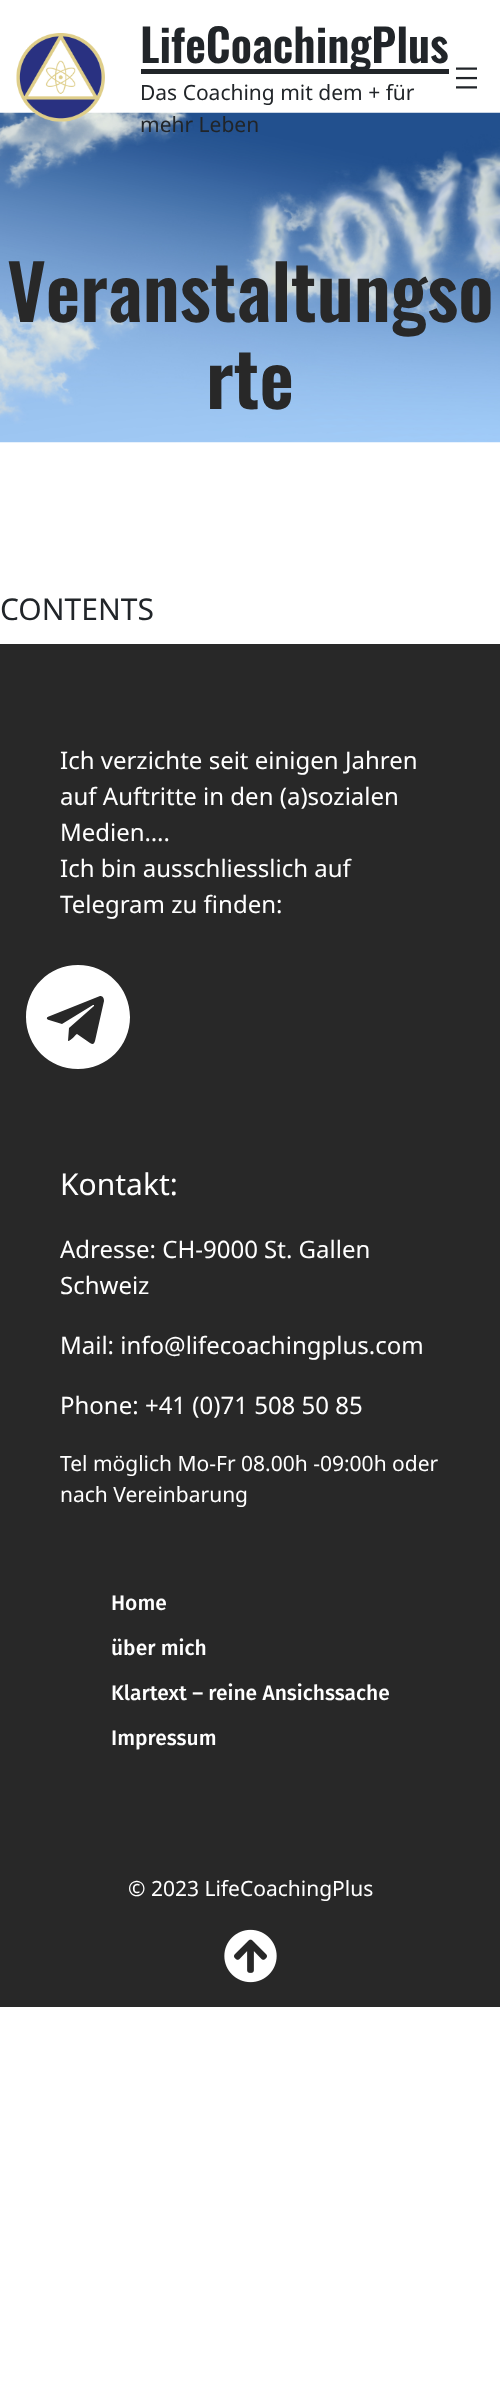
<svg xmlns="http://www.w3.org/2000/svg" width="500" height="2394">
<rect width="100%" height="100%" fill="#fff"/>
<image x="0" y="112" width="500" height="331" href="media/3.png"/>
<image x="16" y="33" width="89" height="89" href="media/1.png"/>
<rect x="141" y="69" width="308" height="5" fill="#212529"/>
<text x="140" y="63" style="font-family:Oswald;font-size:45px;font-weight:600;fill:#212529">LifeCoachingPlus</text>
<text x="140" y="100" style="font-family:Noto Sans;font-size:21px;fill:#212529">Das Coaching mit dem + für</text>
<text x="140" y="132" style="font-family:Noto Sans;font-size:21px;fill:#212529">mehr Leben</text>
<image x="456" y="67" width="21" height="22" href="media/2.png"/>
<text x="7" y="322" style="font-family:Oswald;font-size:75px;font-weight:600;fill:#282828">Veranstaltungso</text>
<text x="206" y="409" style="font-family:Oswald;font-size:75px;font-weight:600;fill:#282828">rte</text>
<text x="0" y="620" style="font-family:Noto Sans;font-size:30px;fill:#212529">CONTENTS</text>
<rect y="644" width="500" height="1363" fill="#282828"/>
<text x="60" y="769" style="font-family:Noto Sans;font-size:24px;fill:#fff">Ich verzichte seit einigen Jahren</text>
<text x="60" y="805" style="font-family:Noto Sans;font-size:24px;fill:#fff">auf Auftritte in den (a)sozialen</text>
<text x="60" y="841" style="font-family:Noto Sans;font-size:24px;fill:#fff">Medien….</text>
<text x="60" y="877" style="font-family:Noto Sans;font-size:24px;fill:#fff">Ich bin ausschliesslich auf</text>
<text x="60" y="913" style="font-family:Noto Sans;font-size:24px;fill:#fff">Telegram zu finden:</text>
<path d="M78 965c-29 0-52 23-52 52c0 29 23 52 52 52c29 0 52-23 52-52c0-29-23-52-52-52zm26 36l-9 40c-1 3-2 4-5 2l-13-9c-2 1-6 7-9 7l1-13l25-22v-1h-1l-31 19l-13-4c-3-1-3-3 1-4l50-20c2 0 4 1 4 5z" fill="#fff"/>
<text x="60" y="1195" style="font-family:Noto Sans;font-size:30px;fill:#fff">Kontakt:</text>
<text x="60" y="1258" style="font-family:Noto Sans;font-size:24px;fill:#fff">Adresse: CH-9000 St. Gallen</text>
<text x="60" y="1294" style="font-family:Noto Sans;font-size:24px;fill:#fff">Schweiz</text>
<text x="60" y="1354" style="font-family:Noto Sans;font-size:24px;fill:#fff">Mail: info@lifecoachingplus.com</text>
<text x="60" y="1414" style="font-family:Noto Sans;font-size:24px;fill:#fff">Phone: +41 (0)71 508 50 85</text>
<text x="60" y="1471" style="font-family:Noto Sans;font-size:21px;fill:#fff">Tel möglich Mo-Fr 08.00h -09:00h oder</text>
<text x="60" y="1502" style="font-family:Noto Sans;font-size:21px;fill:#fff">nach Vereinbarung</text>
<text x="111" y="1610" style="font-family:Fira Sans;font-size:21px;font-weight:500;fill:#fff">Home</text>
<text x="111" y="1655" style="font-family:Fira Sans;font-size:21px;font-weight:500;fill:#fff">über mich</text>
<text x="111" y="1700" style="font-family:Fira Sans;font-size:21px;font-weight:500;fill:#fff">Klartext – reine Ansichssache</text>
<text x="111" y="1745" style="font-family:Fira Sans;font-size:21px;font-weight:500;fill:#fff">Impressum</text>
<text x="128" y="1896" style="font-family:Noto Sans;font-size:21px;fill:#fff">© 2023 LifeCoachingPlus</text>
<image x="224" y="1929" width="53" height="54" href="media/4.png"/>
</svg>
